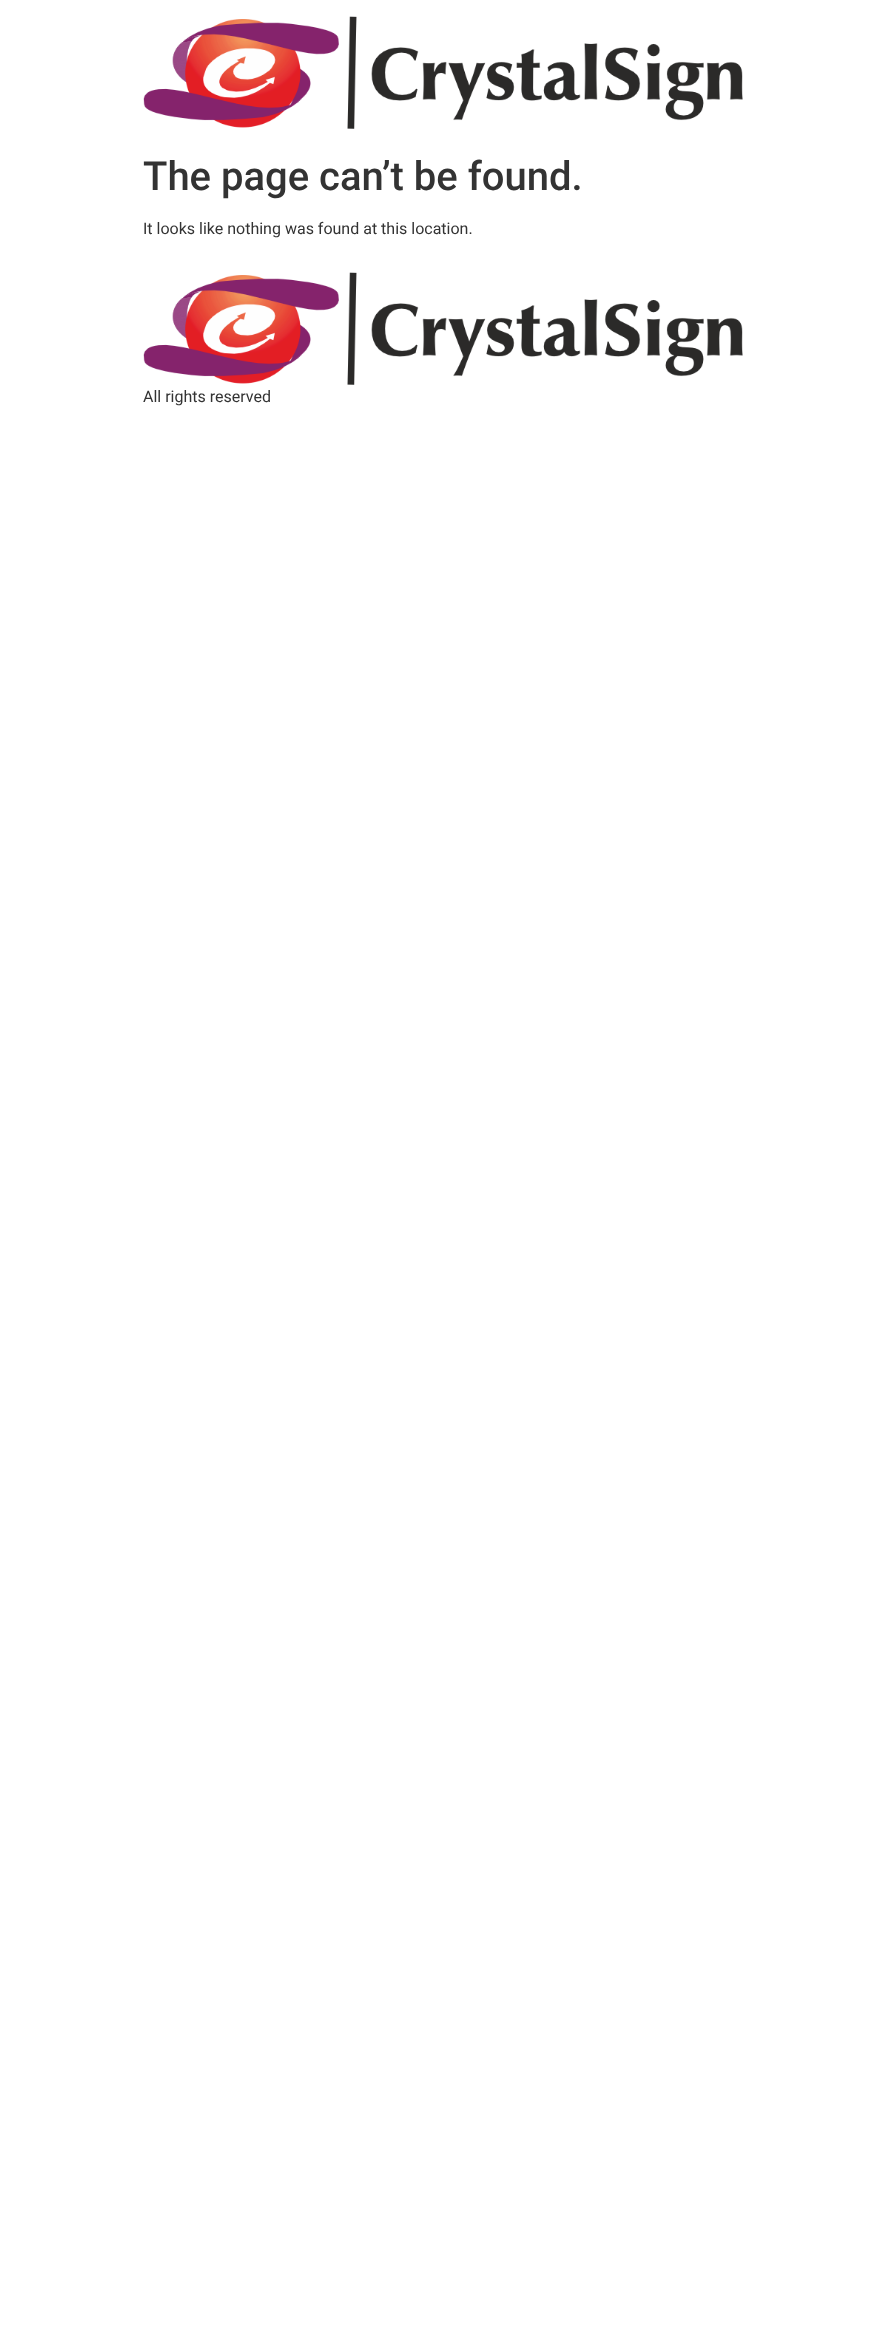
<svg xmlns="http://www.w3.org/2000/svg" width="886" height="2344">
<rect width="100%" height="100%" fill="#fff"/>
<image x="143" y="16" width="600" height="113" href="media/1.png"/>
<text x="143" y="190" style="font-family:Roboto;font-size:40px;font-weight:500;fill:#333">The page can’t be found.</text>
<text x="143" y="234" style="font-family:Roboto;font-size:16px;fill:#333">It looks like nothing was found at this location.</text>
<image x="143" y="272" width="600" height="113" href="media/1.png"/>
<text x="143" y="402" style="font-family:Roboto;font-size:16px;fill:#333">All rights reserved</text>
</svg>
